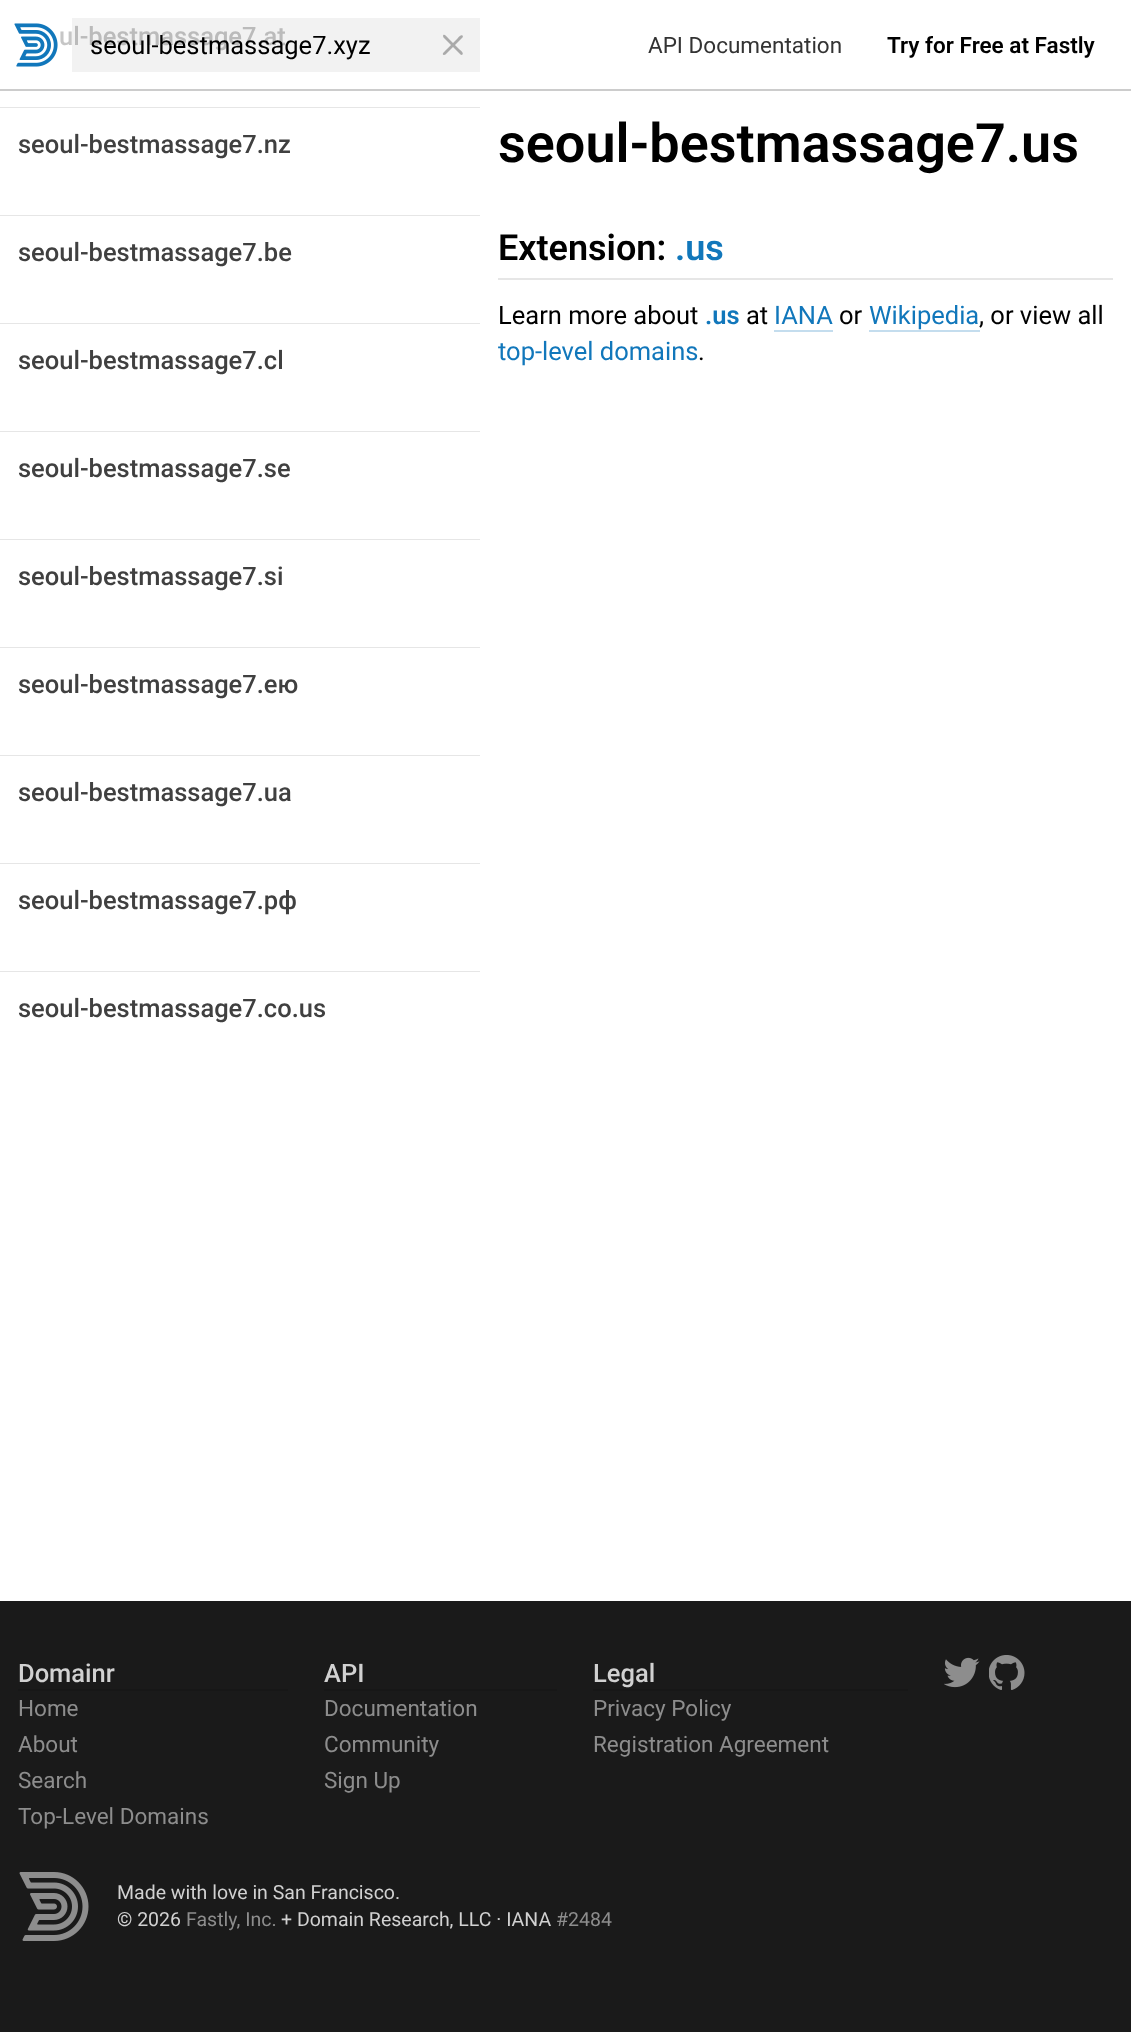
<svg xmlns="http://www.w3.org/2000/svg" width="1131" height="2032">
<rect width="100%" height="100%" fill="#fff"/>
<text x="59" y="45" style="font-family:Roboto;font-size:25.5px;font-weight:500;fill:#c6c6c6">ul-bestmassage7.at</text>
<rect y="107" width="480" height="1" fill="#e6e6e6"/>
<text x="18" y="153" style="font-family:Roboto;font-size:25.5px;font-weight:500;fill:#404040">seoul-bestmassage7.nz</text>
<rect y="215" width="480" height="1" fill="#e6e6e6"/>
<text x="18" y="261" style="font-family:Roboto;font-size:25.5px;font-weight:500;fill:#404040">seoul-bestmassage7.be</text>
<rect y="323" width="480" height="1" fill="#e6e6e6"/>
<text x="18" y="369" style="font-family:Roboto;font-size:25.5px;font-weight:500;fill:#404040">seoul-bestmassage7.cl</text>
<rect y="431" width="480" height="1" fill="#e6e6e6"/>
<text x="18" y="477" style="font-family:Roboto;font-size:25.5px;font-weight:500;fill:#404040">seoul-bestmassage7.se</text>
<rect y="539" width="480" height="1" fill="#e6e6e6"/>
<text x="18" y="585" style="font-family:Roboto;font-size:25.5px;font-weight:500;fill:#404040">seoul-bestmassage7.si</text>
<rect y="647" width="480" height="1" fill="#e6e6e6"/>
<text x="18" y="693" style="font-family:Roboto;font-size:25.5px;font-weight:500;fill:#404040">seoul-bestmassage7.ею</text>
<rect y="755" width="480" height="1" fill="#e6e6e6"/>
<text x="18" y="801" style="font-family:Roboto;font-size:25.5px;font-weight:500;fill:#404040">seoul-bestmassage7.ua</text>
<rect y="863" width="480" height="1" fill="#e6e6e6"/>
<text x="18" y="909" style="font-family:Roboto;font-size:25.5px;font-weight:500;fill:#404040">seoul-bestmassage7.рф</text>
<rect y="971" width="480" height="1" fill="#e6e6e6"/>
<text x="18" y="1017" style="font-family:Roboto;font-size:25.5px;font-weight:500;fill:#404040">seoul-bestmassage7.co.us</text>
<text x="498" y="162" style="font-family:Roboto;font-size:54px;font-weight:600;fill:#000">seoul-bestmassage7.us</text>
<text x="498" y="260" style="font-family:Roboto;font-size:36px;font-weight:600;fill:#000">Extension:</text>
<text x="675" y="260" style="font-family:Roboto;font-size:36px;font-weight:600;fill:#17b">.us</text>
<rect x="498" y="278" width="615" height="2" fill="#e6e6e6"/>
<text x="498" y="324" style="font-family:Roboto;font-size:25.5px;fill:#000">Learn more about</text>
<text x="705" y="324" style="font-family:Roboto;font-size:25.5px;font-weight:600;fill:#17b">.us</text>
<text x="746" y="324" style="font-family:Roboto;font-size:25.5px;fill:#000">at</text>
<text x="774" y="324" style="font-family:Roboto;font-size:25.5px;fill:#17b">IANA</text>
<rect x="774" y="330" width="59" height="2" fill="#c4ddee"/>
<text x="839" y="324" style="font-family:Roboto;font-size:25.5px;fill:#000">or</text>
<text x="869" y="324" style="font-family:Roboto;font-size:25.5px;fill:#17b">Wikipedia</text>
<rect x="869" y="330" width="111" height="2" fill="#c4ddee"/>
<text x="979" y="324" style="font-family:Roboto;font-size:25.5px;fill:#000">, or view all</text>
<text x="498" y="360" style="font-family:Roboto;font-size:25.5px;fill:#17b">top-level domains</text>
<text x="698" y="360" style="font-family:Roboto;font-size:25.5px;fill:#000">.</text>
<image x="14" y="23" width="44" height="44" href="media/1.png"/>
<rect x="72" y="18" width="408" height="54" fill="#0000000d"/>
<text x="90" y="54" style="font-family:Roboto;font-size:25.5px;fill:#000">seoul-bestmassage7.xyz</text>
<path d="M462.5 37.5l-17 17l-1.5 .5c-3-.5 .5-3.5 2.5-5.5l11-11c.5-.5 3-4.5 5-3c.5 .5 .5 1.5 0 2z" fill="#aaa"/>
<path d="M460.5 54.5l-17-17l-.5-1.5c.5-3 3.5 .5 5.5 2.5l11 11c.5 .5 4.5 3 3 5c-.5 .5-1.5 .5-2 0z" fill="#aaa"/>
<text x="648" y="53" style="font-family:Roboto;font-size:22.5px;fill:#333">API Documentation</text>
<text x="887" y="53" style="font-family:Roboto;font-size:22.5px;font-weight:600;fill:#000">Try for Free at Fastly</text>
<rect y="89" width="1131" height="2" fill="#ccc"/>
<rect y="1601" width="1131" height="431" fill="#1a1a1a"/>
<text x="18" y="1682" style="font-family:Roboto;font-size:25.5px;font-weight:500;fill:#d1d1d1">Domainr</text>
<rect x="18" y="1689" width="270" height="2" fill="#171717"/>
<text x="18" y="1716" style="font-family:Roboto;font-size:22.5px;fill:#8d8d8d">Home</text>
<text x="18" y="1752" style="font-family:Roboto;font-size:22.5px;fill:#8d8d8d">About</text>
<text x="18" y="1788" style="font-family:Roboto;font-size:22.5px;fill:#8d8d8d">Search</text>
<text x="18" y="1824" style="font-family:Roboto;font-size:22.5px;fill:#8d8d8d">Top-Level Domains</text>
<text x="324" y="1682" style="font-family:Roboto;font-size:25.5px;font-weight:500;fill:#d1d1d1">API</text>
<rect x="324" y="1689" width="233" height="2" fill="#171717"/>
<text x="324" y="1716" style="font-family:Roboto;font-size:22.5px;fill:#8d8d8d">Documentation</text>
<text x="324" y="1752" style="font-family:Roboto;font-size:22.5px;fill:#8d8d8d">Community</text>
<text x="324" y="1788" style="font-family:Roboto;font-size:22.5px;fill:#8d8d8d">Sign Up</text>
<text x="593" y="1682" style="font-family:Roboto;font-size:25.5px;font-weight:500;fill:#d1d1d1">Legal</text>
<rect x="593" y="1689" width="315" height="2" fill="#171717"/>
<text x="593" y="1716" style="font-family:Roboto;font-size:22.5px;fill:#8d8d8d">Privacy Policy</text>
<text x="593" y="1752" style="font-family:Roboto;font-size:22.5px;fill:#8d8d8d">Registration Agreement</text>
<image x="944" y="1657" width="36" height="31" href="media/2.png"/>
<image x="989" y="1655" width="36" height="35" href="media/3.png"/>
<image x="19" y="1872" width="70" height="69" href="media/4.png"/>
<text x="117" y="1899" style="font-family:Roboto;font-size:19.5px;fill:#d1d1d1">Made with love in San Francisco.</text>
<text x="117" y="1926" style="font-family:Roboto;font-size:19.5px;fill:#d1d1d1">© 2026</text>
<text x="186" y="1926" style="font-family:Roboto;font-size:19.5px;fill:#8d8d8d">Fastly, Inc.</text>
<text x="281" y="1926" style="font-family:Roboto;font-size:19.5px;fill:#d1d1d1">+ Domain Research, LLC · IANA</text>
<text x="556" y="1926" style="font-family:Roboto;font-size:19.5px;fill:#8d8d8d">#2484</text>
</svg>
